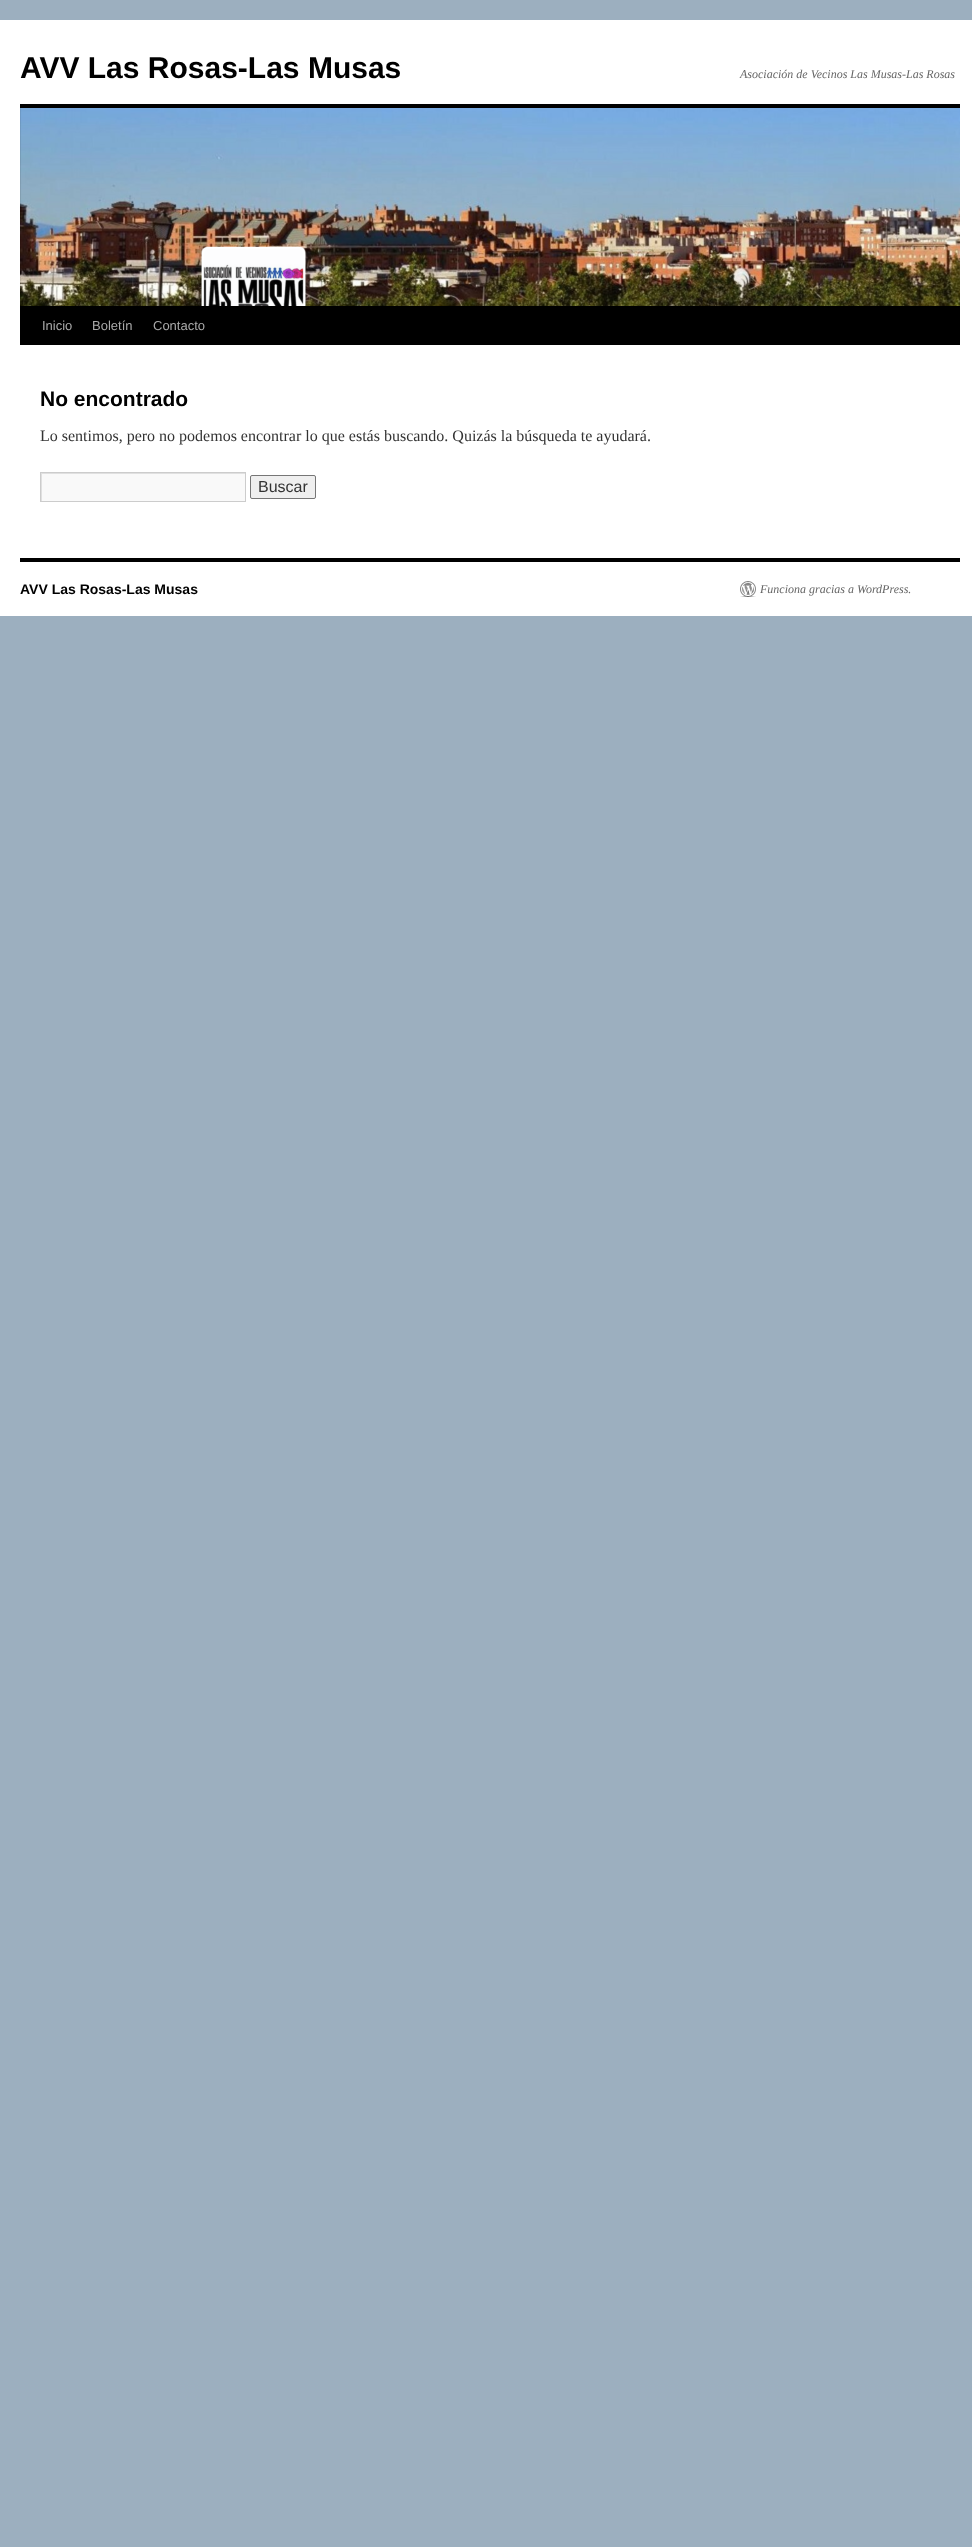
<svg xmlns="http://www.w3.org/2000/svg" width="972" height="2547">
<defs>
<clipPath id="clip1"><rect x="41" y="473" width="204" height="28"/></clipPath>
</defs>
<rect width="100%" height="100%" fill="#9cafbf"/>
<rect y="20" width="972" height="596" fill="#fff"/>
<text x="20" y="78" style="font-family:Liberation Sans;font-size:30px;font-weight:bold;fill:#000">AVV Las Rosas-Las Musas</text>
<text x="740" y="78" style="font-family:Liberation Serif;font-size:12px;font-style:italic;fill:#666">Asociación de Vecinos Las Musas-Las Rosas</text>
<rect x="20" y="104" width="940" height="4" fill="#000"/>
<rect x="20" y="306" width="940" height="39" fill="#000"/>
<image x="20" y="108" width="940" height="198" href="media/1.png"/>
<text x="42" y="330" style="font-family:Liberation Sans;font-size:13px;fill:#aaa">Inicio</text>
<text x="92" y="330" style="font-family:Liberation Sans;font-size:13px;fill:#aaa">Boletín</text>
<text x="153" y="330" style="font-family:Liberation Sans;font-size:13px;fill:#aaa">Contacto</text>
<text x="40" y="406" style="font-family:Liberation Sans;font-size:21px;font-weight:bold;fill:#000">No encontrado</text>
<text x="40" y="441" style="font-family:Liberation Serif;font-size:16px;fill:#333">Lo sentimos, pero no podemos encontrar lo que estás buscando. Quizás la búsqueda te ayudará.</text>
<rect x="42" y="474" width="203" height="27" fill="#f9f9f9"/>
<g clip-path="url(#clip1)">
<path d="M-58 374h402v226h-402zm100 100h204v28h-204z" fill="#e0e0e0" fill-rule="evenodd"/>
</g>
<rect x="40.5" y="472.5" width="205" height="29" fill="none" stroke="#ccc"/>
<rect x="250.5" y="475.5" width="65" height="23" rx="1.5" fill="#efefef" stroke="#767676"/>
<text x="258" y="492" style="font-family:Liberation Sans;font-size:16px;fill:#333">Buscar</text>
<rect x="20" y="558" width="940" height="4" fill="#000"/>
<text x="20" y="594" style="font-family:Liberation Sans;font-size:14px;font-weight:bold;fill:#000">AVV Las Rosas-Las Musas</text>
<image x="740" y="581" width="16" height="16" href="media/2.png"/>
<text x="760" y="593" style="font-family:Liberation Serif;font-size:12px;font-style:italic;fill:#666">Funciona gracias a WordPress.</text>
</svg>
